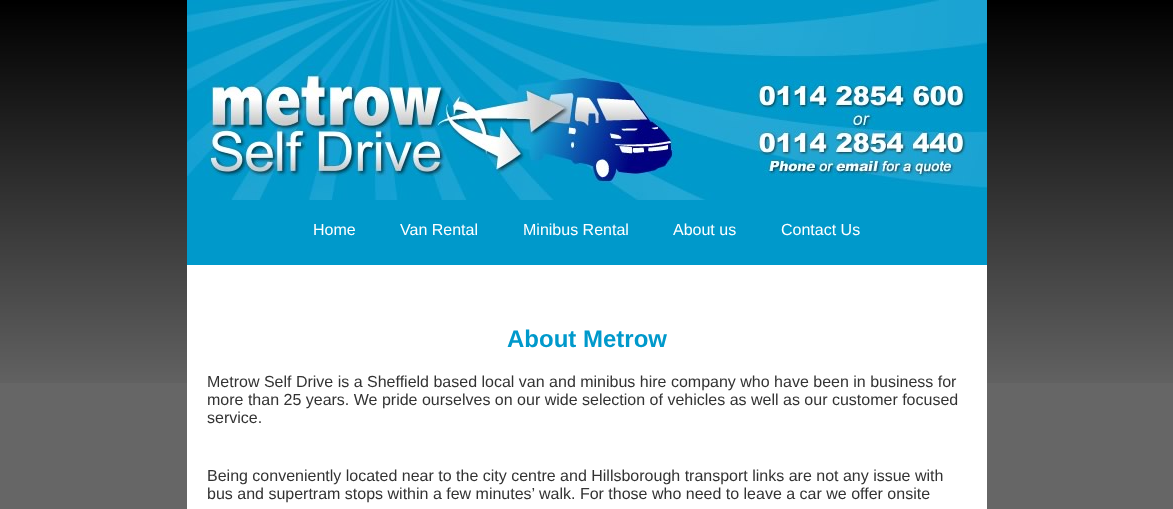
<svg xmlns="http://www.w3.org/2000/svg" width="1173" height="509">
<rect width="100%" height="100%" fill="#666"/>
<image x="0" y="0" width="1173" height="383" href="media/1.png"/>
<rect x="187" y="265" width="800" height="244" fill="#fff"/>
<image x="187" y="0" width="800" height="200" href="media/2.png"/>
<rect x="187" y="200" width="800" height="65" fill="#0099cb"/>
<text x="313" y="235" style="font-family:Liberation Sans;font-size:16px;fill:#fff">Home</text>
<text x="400" y="235" style="font-family:Liberation Sans;font-size:16px;fill:#fff">Van Rental</text>
<text x="523" y="235" style="font-family:Liberation Sans;font-size:16px;fill:#fff">Minibus Rental</text>
<text x="673" y="235" style="font-family:Liberation Sans;font-size:16px;fill:#fff">About us</text>
<text x="781" y="235" style="font-family:Liberation Sans;font-size:16px;fill:#fff">Contact Us</text>
<text x="507" y="347" style="font-family:Liberation Sans;font-size:24px;font-weight:bold;fill:#0099cb">About Metrow</text>
<text x="207" y="387" style="font-family:Liberation Sans;font-size:16px;fill:#333">Metrow Self Drive is a Sheffield based local van and minibus hire company who have been in business for</text>
<text x="207" y="405" style="font-family:Liberation Sans;font-size:16px;fill:#333">more than 25 years. We pride ourselves on our wide selection of vehicles as well as our customer focused</text>
<text x="207" y="423" style="font-family:Liberation Sans;font-size:16px;fill:#333">service.</text>
<text x="207" y="481" style="font-family:Liberation Sans;font-size:16px;fill:#333">Being conveniently located near to the city centre and Hillsborough transport links are not any issue with</text>
<text x="207" y="499" style="font-family:Liberation Sans;font-size:16px;fill:#333">bus and supertram stops within a few minutes’ walk. For those who need to leave a car we offer onsite</text>
</svg>
